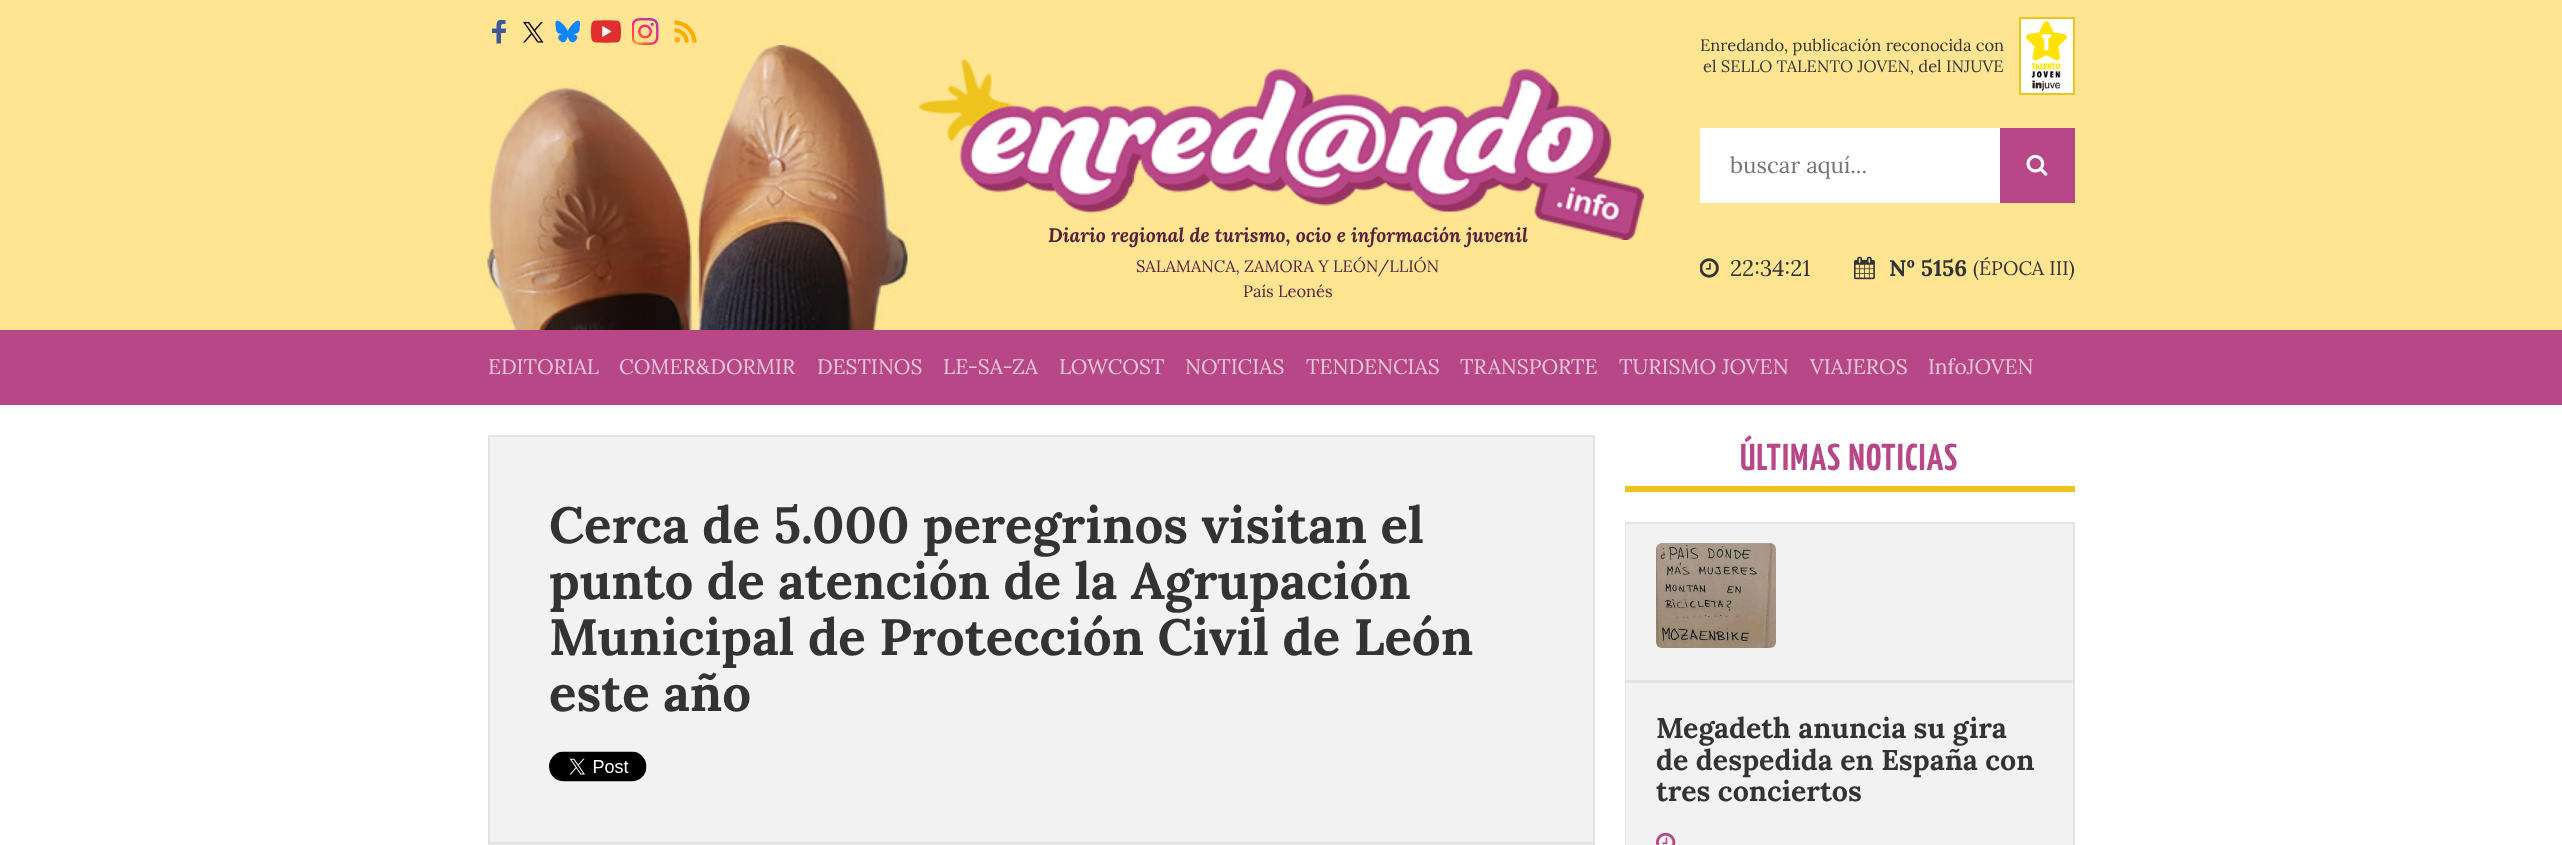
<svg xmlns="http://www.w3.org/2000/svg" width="2562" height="845">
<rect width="100%" height="100%" fill="#fff"/>
<rect width="2562" height="330" fill="#ffe591"/>
<image x="487" y="45" width="421" height="285" href="media/1.png"/>
<image x="492" y="20" width="15" height="24" href="media/2.png"/>
<image x="523" y="21" width="21" height="22" href="media/3.png"/>
<image x="555" y="20" width="26" height="23" href="media/4.png"/>
<image x="591" y="20" width="30" height="23" href="media/5.png"/>
<image x="632" y="18" width="27" height="27" href="media/6.png"/>
<image x="674" y="20" width="23" height="23" href="media/7.png"/>
<text x="1700" y="51" style="font-family:Lora;font-size:16.5px;fill:#333">Enredando, publicación reconocida con</text>
<text x="1703" y="72" style="font-family:Lora;font-size:16.5px;fill:#333">el SELLO TALENTO JOVEN, del INJUVE</text>
<rect x="2020" y="18" width="54" height="76" fill="#fff" stroke="#eec31f" stroke-width="2"/>
<image x="2025" y="21" width="42" height="70" href="media/8.png"/>
<rect x="1700" y="128" width="300" height="75" fill="#fff"/>
<text x="1730" y="173" style="font-family:Lora;font-size:22.5px;fill:#757575">buscar aquí...</text>
<rect x="2000" y="128" width="75" height="75" fill="#b84788"/>
<image x="2026" y="154" width="22" height="22" href="media/9.png"/>
<image x="919" y="60" width="725" height="180" href="media/10.png"/>
<text x="1048" y="242" style="font-family:Lora;font-size:19.5px;font-weight:bold;font-style:italic;fill:#5a213d">Diario regional de turismo, ocio e información juvenil</text>
<text x="1136" y="272" style="font-family:Lora;font-size:16.5px;fill:#5a213d">SALAMANCA, ZAMORA Y LEÓN/LLIÓN</text>
<text x="1243" y="297" style="font-family:Lora;font-size:16.5px;fill:#5a213d">País Leonés</text>
<image x="1700" y="258" width="19" height="20" href="media/11.png"/>
<text x="1730" y="276" style="font-family:Lora;font-size:22.5px;fill:#333">22:34:21</text>
<image x="1854" y="256" width="21" height="24" href="media/12.png"/>
<text x="1889" y="276" style="font-family:Lora;font-size:22.5px;font-weight:bold;fill:#333">Nº 5156</text>
<text x="1973" y="275" style="font-family:Lora;font-size:19.5px;fill:#333">(ÉPOCA III)</text>
<rect y="330" width="2562" height="75" fill="#b84788"/>
<text x="488" y="374" style="font-family:Lora;font-size:21px;fill:#eac8db">EDITORIAL</text>
<text x="619" y="374" style="font-family:Lora;font-size:21px;fill:#eac8db">COMER&amp;DORMIR</text>
<text x="817" y="374" style="font-family:Lora;font-size:21px;fill:#eac8db">DESTINOS</text>
<text x="943" y="374" style="font-family:Lora;font-size:21px;fill:#eac8db">LE-SA-ZA</text>
<text x="1059" y="374" style="font-family:Lora;font-size:21px;fill:#eac8db">LOWCOST</text>
<text x="1185" y="374" style="font-family:Lora;font-size:21px;fill:#eac8db">NOTICIAS</text>
<text x="1306" y="374" style="font-family:Lora;font-size:21px;fill:#eac8db">TENDENCIAS</text>
<text x="1460" y="374" style="font-family:Lora;font-size:21px;fill:#eac8db">TRANSPORTE</text>
<text x="1619" y="374" style="font-family:Lora;font-size:21px;fill:#eac8db">TURISMO JOVEN</text>
<text x="1810" y="374" style="font-family:Lora;font-size:21px;fill:#eac8db">VIAJEROS</text>
<text x="1928" y="374" style="font-family:Lora;font-size:21px;fill:#eac8db">InfoJOVEN</text>
<rect x="489" y="436" width="1105" height="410" fill="#f2f2f2" stroke="#e1e3e4" stroke-width="2"/>
<rect x="489" y="842" width="1104" height="2" fill="#e1e3e4"/>
<text x="549" y="543" style="font-family:Lora;font-size:51px;font-weight:bold;fill:#333">Cerca de 5.000 peregrinos visitan el</text>
<text x="549" y="599" style="font-family:Lora;font-size:51px;font-weight:bold;fill:#333">punto de atención de la Agrupación</text>
<text x="549" y="655" style="font-family:Lora;font-size:51px;font-weight:bold;fill:#333">Municipal de Protección Civil de León</text>
<text x="549" y="711" style="font-family:Lora;font-size:51px;font-weight:bold;fill:#333">este año</text>
<image x="549" y="751" width="98" height="31" href="media/13.png"/>
<rect x="1625" y="486" width="450" height="6" fill="#eec31e"/>
<text x="1740" y="470" style="font-family:Yanone Kaffeesatz;font-size:37.5px;font-weight:bold;letter-spacing:1.5px;fill:#b84788">ÚLTIMAS NOTICIAS</text>
<rect x="1626" y="523" width="448" height="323" fill="none" stroke="#e1e3e4" stroke-width="2"/>
<rect x="1626" y="524" width="447" height="156" fill="#f2f2f2"/>
<rect x="1626" y="680" width="447" height="3" fill="#e1e3e4"/>
<image x="1656" y="543" width="120" height="105" href="media/14.png"/>
<rect x="1626" y="683" width="447" height="162" fill="#f2f2f2"/>
<text x="1656" y="738" style="font-family:Lora;font-size:28.5px;font-weight:bold;fill:#333">Megadeth anuncia su gira</text>
<text x="1656" y="770" style="font-family:Lora;font-size:28.5px;font-weight:bold;fill:#333">de despedida en España con</text>
<text x="1656" y="801" style="font-family:Lora;font-size:28.5px;font-weight:bold;fill:#333">tres conciertos</text>
<image x="1656" y="832" width="20" height="13" href="media/15.png"/>
</svg>
